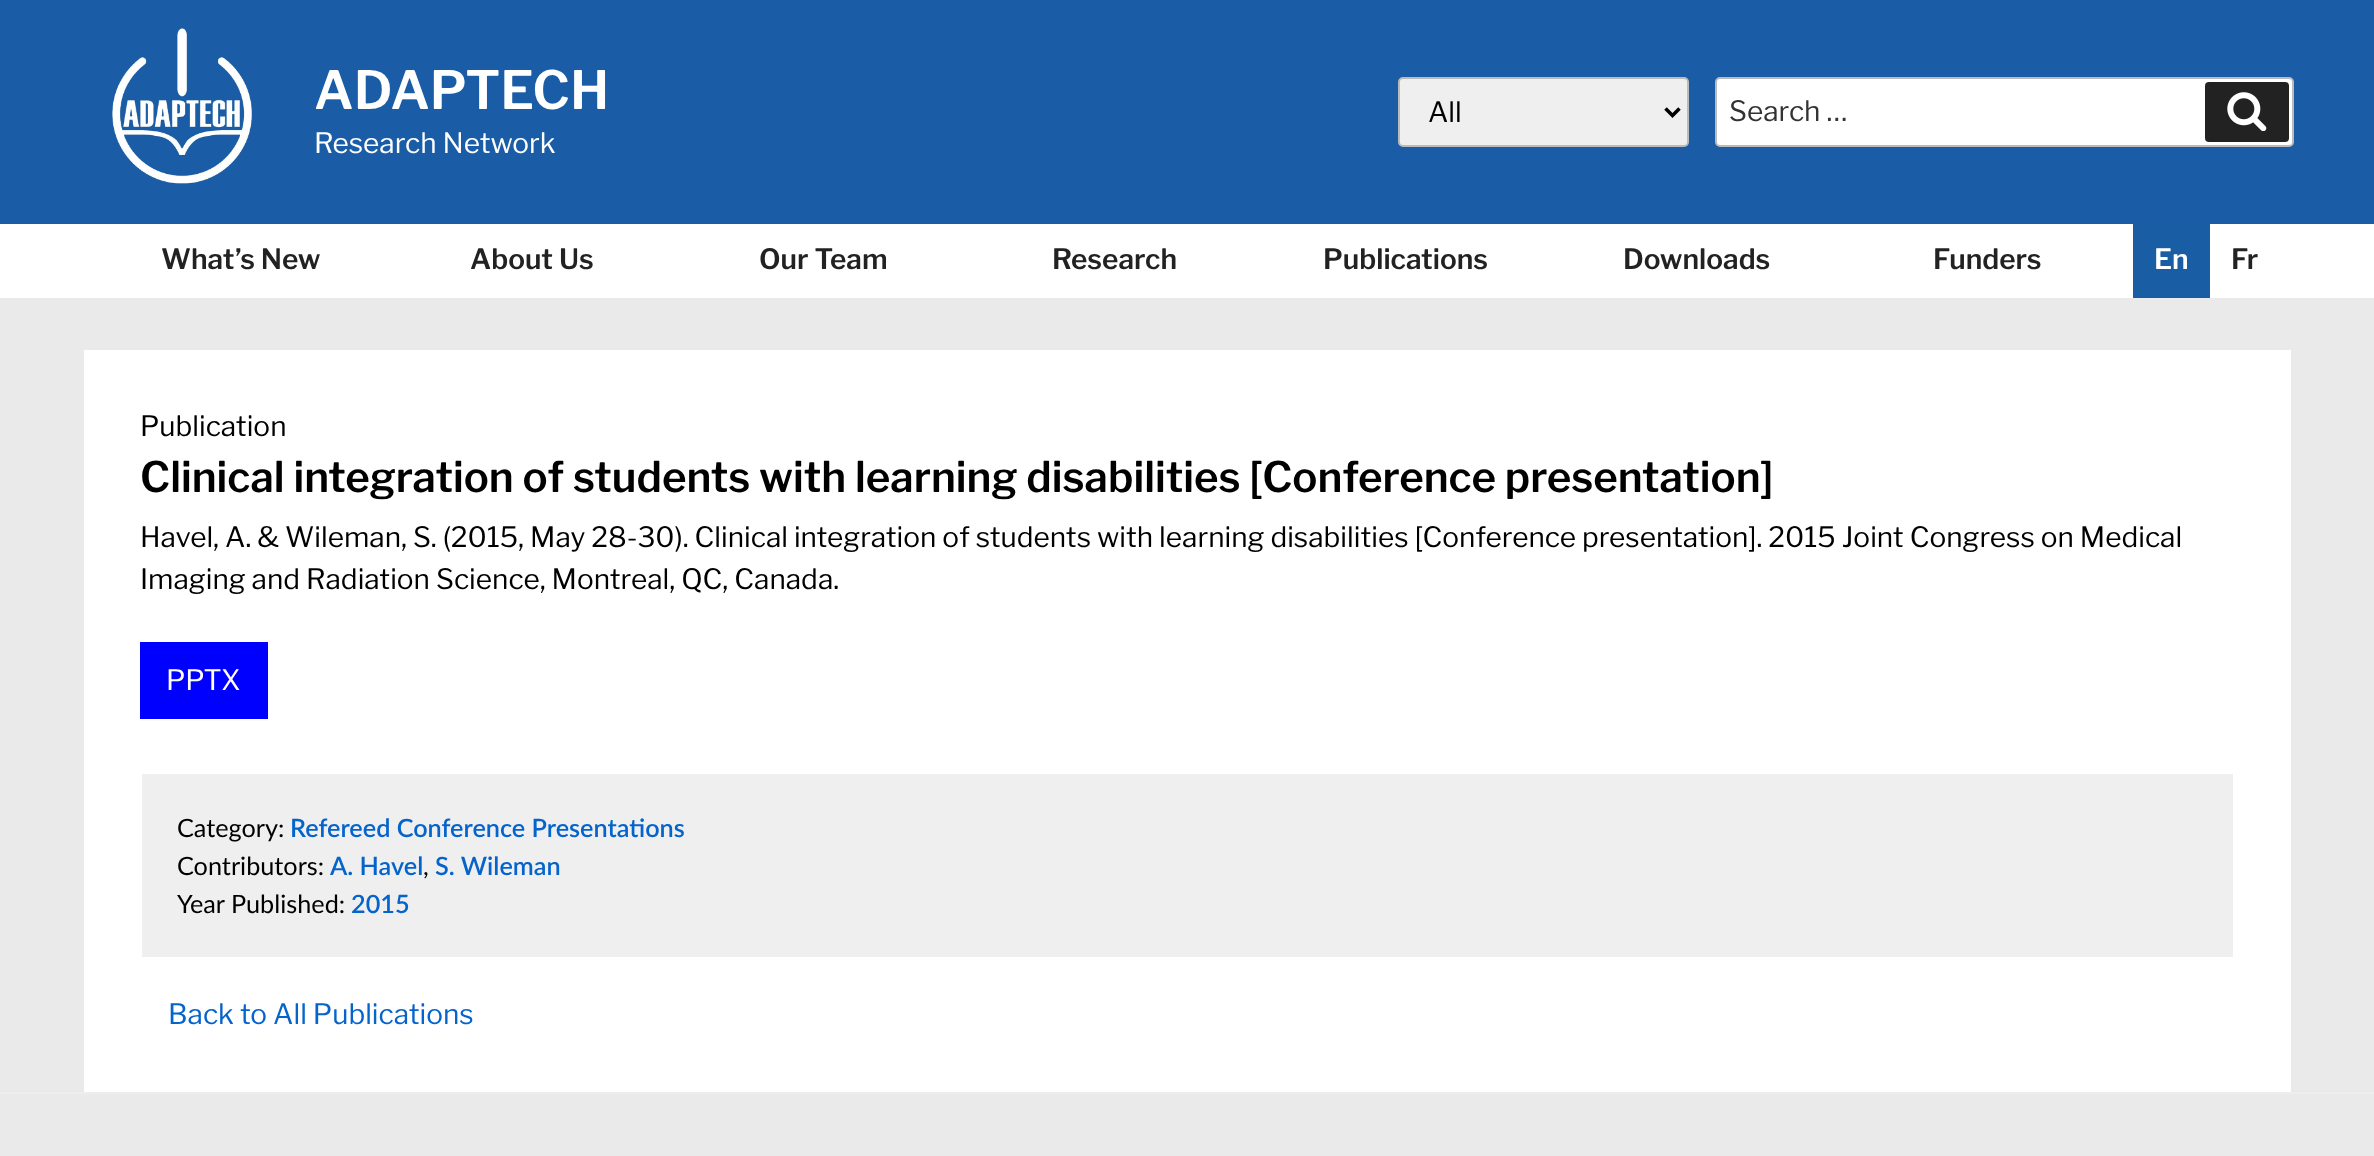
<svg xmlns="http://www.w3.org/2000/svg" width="2374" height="1156">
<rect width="100%" height="100%" fill="#fff"/>
<rect width="2374" height="224" fill="#1a5ca5"/>
<image x="112" y="28" width="140" height="156" href="media/1.png"/>
<text x="314" y="109" style="font-family:Libre Franklin;font-size:52.5px;font-weight:600;fill:#fff">ADAPTECH</text>
<text x="314" y="153" style="font-family:Libre Franklin;font-size:28px;fill:#fff">Research Network</text>
<rect x="1399" y="78" width="289" height="68" rx="4" fill="#efefef" stroke="#bbb" stroke-width="2"/>
<path d="M1665.5 108.5l7 7l7-7" fill="none" stroke="#000" stroke-width="3.5"/>
<text x="1428" y="122" style="font-family:Libre Franklin;font-size:28px;fill:#000">All</text>
<rect x="1716" y="78" width="577" height="68" rx="4" fill="#fff" stroke="#bbb" stroke-width="2"/>
<text x="1729" y="121" style="font-family:Libre Franklin;font-size:28px;fill:#333">Search …</text>
<rect x="2205" y="82" width="84" height="60" rx="4" fill="#222"/>
<image x="2227" y="92" width="40" height="39" href="media/2.png"/>
<text x="161" y="269" style="font-family:Libre Franklin;font-size:28px;font-weight:600;fill:#222">What’s New</text>
<text x="470" y="269" style="font-family:Libre Franklin;font-size:28px;font-weight:600;fill:#222">About Us</text>
<text x="759" y="269" style="font-family:Libre Franklin;font-size:28px;font-weight:600;fill:#222">Our Team</text>
<text x="1052" y="269" style="font-family:Libre Franklin;font-size:28px;font-weight:600;fill:#222">Research</text>
<text x="1323" y="269" style="font-family:Libre Franklin;font-size:28px;font-weight:600;fill:#222">Publications</text>
<text x="1623" y="269" style="font-family:Libre Franklin;font-size:28px;font-weight:600;fill:#222">Downloads</text>
<text x="1933" y="269" style="font-family:Libre Franklin;font-size:28px;font-weight:600;fill:#222">Funders</text>
<rect x="2133" y="224" width="77" height="74" fill="#195da5"/>
<text x="2154" y="269" style="font-family:Libre Franklin;font-size:28px;font-weight:600;fill:#fff">En</text>
<text x="2231" y="269" style="font-family:Libre Franklin;font-size:28px;font-weight:600;fill:#222">Fr</text>
<rect y="298" width="2374" height="794" fill="#eaeaea"/>
<rect x="84" y="350" width="2207" height="742" fill="#fff"/>
<text x="140" y="436" style="font-family:Libre Franklin;font-size:28px;fill:#000">Publication</text>
<text x="140" y="492" style="font-family:Libre Franklin;font-size:42px;font-weight:600;fill:#000">Clinical integration of students with learning disabilities [Conference presentation]</text>
<text x="140" y="547" style="font-family:Libre Franklin;font-size:28px;fill:#000">Havel, A. &amp; Wileman, S. (2015, May 28-30). Clinical integration of students with learning disabilities [Conference presentation]. 2015 Joint Congress on Medical</text>
<text x="140" y="589" style="font-family:Libre Franklin;font-size:28px;fill:#000">Imaging and Radiation Science, Montreal, QC, Canada.</text>
<rect x="140" y="642" width="128" height="77" fill="#00f"/>
<text x="166" y="690" style="font-family:Libre Franklin;font-size:28px;fill:#fff">PPTX</text>
<rect x="142" y="774" width="2091" height="183" fill="#efefef"/>
<text x="177" y="837" style="font-family:Lato;font-size:25.25px;fill:#000">Category:</text>
<text x="290" y="837" style="font-family:Lato;font-size:25.25px;font-weight:600;fill:#0564cc">Refereed Conference Presentations</text>
<text x="177" y="875" style="font-family:Lato;font-size:25.25px;fill:#000">Contributors:</text>
<text x="330" y="875" style="font-family:Lato;font-size:25.25px;font-weight:600;fill:#0564cc">A. Havel</text>
<text x="423" y="875" style="font-family:Lato;font-size:25.25px;fill:#000">,</text>
<text x="435" y="875" style="font-family:Lato;font-size:25.25px;font-weight:600;fill:#0564cc">S. Wileman</text>
<text x="177" y="913" style="font-family:Lato;font-size:25.25px;fill:#000">Year Published:</text>
<text x="351" y="913" style="font-family:Lato;font-size:25.25px;font-weight:600;fill:#0564cc">2015</text>
<text x="168" y="1024" style="font-family:Libre Franklin;font-size:28px;fill:#0564cc">Back to All Publications</text>
<rect y="1094" width="2374" height="62" fill="#eaeaea"/>
<rect y="1092" width="2374" height="2" fill="#eee"/>
</svg>
